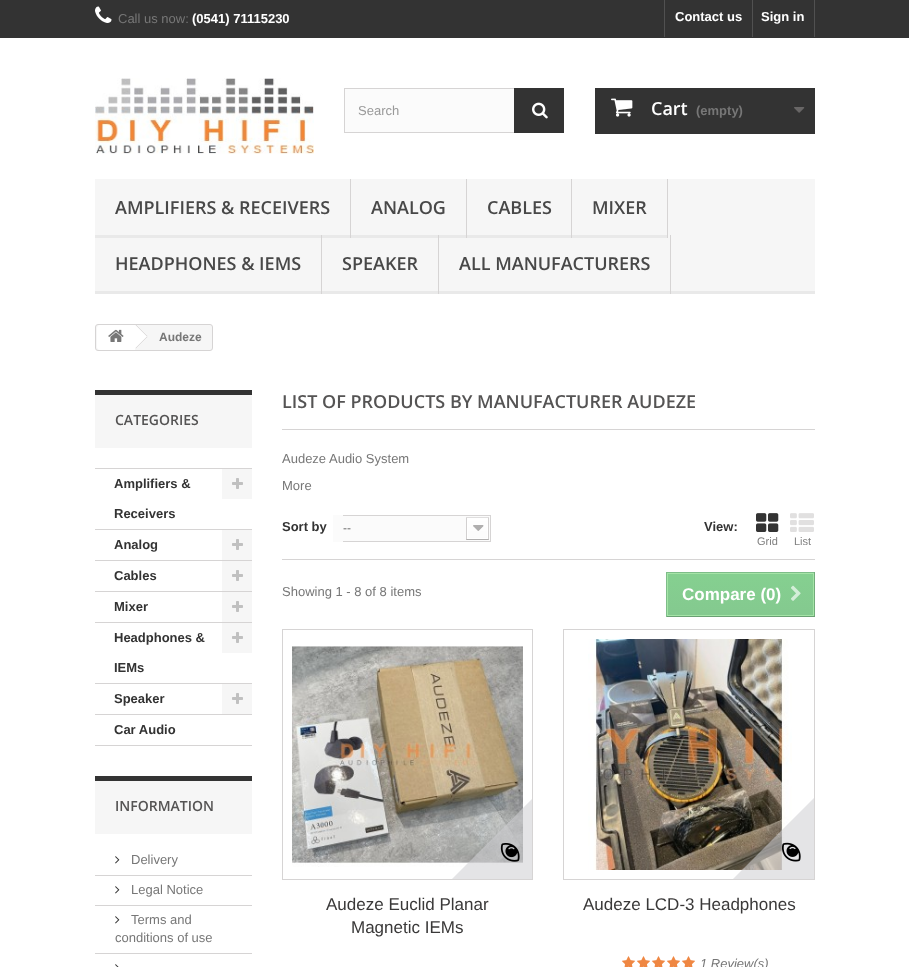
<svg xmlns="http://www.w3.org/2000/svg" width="909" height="967">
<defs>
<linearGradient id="g1" gradientUnits="userSpaceOnUse" x1="741" y1="573" x2="741" y2="616"><stop offset="0" stop-color="#85d090"/><stop offset="1" stop-color="#84c98f"/></linearGradient>
<clipPath id="clip1"><rect x="317" y="724" width="215" height="155"/></clipPath>
<clipPath id="clip2"><rect x="599" y="724" width="215" height="155"/></clipPath>
</defs>
<rect width="100%" height="100%" fill="#fff"/>
<rect width="909" height="38" fill="#333"/>
<image x="95" y="6" width="17" height="17" href="media/1.png"/>
<text x="118" y="23" style="font-family:Liberation Sans;font-size:13px;fill:#777">Call us now:</text>
<text x="192" y="23" style="font-family:Liberation Sans;font-size:13px;font-weight:bold;fill:#fff">(0541) 71115230</text>
<rect x="664" width="1" height="37" fill="#515151"/>
<text x="675" y="21" style="font-family:Liberation Sans;font-size:13px;font-weight:bold;fill:#fff">Contact us</text>
<rect x="814" width="1" height="37" fill="#515151"/>
<rect x="752" width="1" height="37" fill="#515151"/>
<text x="761" y="21" style="font-family:Liberation Sans;font-size:13px;font-weight:bold;fill:#fff">Sign in</text>
<image x="95" y="78" width="219" height="76" href="media/2.png"/>
<rect x="345" y="89" width="169" height="43" fill="#fbfbfb"/>
<rect x="344.5" y="88.5" width="219" height="44" fill="none" stroke="#d6d4d4"/>
<text x="358" y="115" style="font-family:Liberation Sans;font-size:13px;fill:#999">Search</text>
<rect x="514" y="88" width="50" height="45" fill="#333"/>
<image x="532" y="102" width="16" height="17" href="media/3.png"/>
<rect x="595" y="88" width="220" height="46" fill="#333"/>
<image x="611" y="98" width="22" height="19" href="media/4.png"/>
<text x="651" y="115" style="font-family:Open Sans;font-size:18px;font-weight:600;fill:#fff">Cart</text>
<text x="696" y="115" style="font-family:Liberation Sans;font-size:13px;font-weight:bold;fill:#777">(empty)</text>
<image x="794" y="107" width="11" height="6" href="media/5.png"/>
<rect x="95" y="179" width="720" height="112" fill="#f6f6f6"/>
<rect x="95" y="291" width="720" height="3" fill="#e9e9e9"/>
<rect x="350" y="179" width="1" height="59" fill="#d6d4d4"/>
<rect x="95" y="235" width="255" height="3" fill="#e9e9e9"/>
<text x="115" y="214" style="font-family:Open Sans;font-size:18px;font-weight:600;fill:#484848">AMPLIFIERS &amp; RECEIVERS</text>
<rect x="466" y="179" width="1" height="59" fill="#d6d4d4"/>
<rect x="351" y="235" width="115" height="3" fill="#e9e9e9"/>
<text x="371" y="214" style="font-family:Open Sans;font-size:18px;font-weight:600;fill:#484848">ANALOG</text>
<rect x="571" y="179" width="1" height="59" fill="#d6d4d4"/>
<rect x="467" y="235" width="104" height="3" fill="#e9e9e9"/>
<text x="487" y="214" style="font-family:Open Sans;font-size:18px;font-weight:600;fill:#484848">CABLES</text>
<rect x="667" y="179" width="1" height="59" fill="#d6d4d4"/>
<rect x="572" y="235" width="95" height="3" fill="#e9e9e9"/>
<text x="592" y="214" style="font-family:Open Sans;font-size:18px;font-weight:600;fill:#484848">MIXER</text>
<rect x="321" y="235" width="1" height="59" fill="#d6d4d4"/>
<text x="115" y="270" style="font-family:Open Sans;font-size:18px;font-weight:600;fill:#484848">HEADPHONES &amp; IEMS</text>
<rect x="438" y="235" width="1" height="59" fill="#d6d4d4"/>
<text x="342" y="270" style="font-family:Open Sans;font-size:18px;font-weight:600;fill:#484848">SPEAKER</text>
<rect x="670" y="235" width="1" height="59" fill="#d6d4d4"/>
<text x="459" y="270" style="font-family:Open Sans;font-size:18px;font-weight:600;fill:#484848">ALL MANUFACTURERS</text>
<rect x="95.5" y="324.5" width="117" height="26" rx="2.5" fill="#f6f6f6" stroke="#d6d4d4"/>
<path d="M100 325h35v25h-35c-1.5 0-3-1.5-3-3v-19c0-1.5 1.5-3 3-3z" fill="#fff"/>
<path d="M137 325h-3l-10 10c-.5 1-.5 2 0 3l10 10c1 .5 2 .5 3 0l10-10c.5-1 .5-2 0-3z" fill="#fff"/>
<image x="108" y="329" width="16" height="13" href="media/6.png"/>
<path d="M136 324.5l11.5 11.5l-.5 .5l-11.5-11.5z" fill="#d6d4d4"/>
<path d="M147 336.5l.5 .5l-11.5 11.5l-.5-.5z" fill="#d6d4d4"/>
<text x="159" y="341" style="font-family:Liberation Sans;font-size:12px;font-weight:bold;fill:#777">Audeze</text>
<rect x="95" y="395" width="157" height="53" fill="#f6f6f6"/>
<rect x="95" y="390" width="157" height="5" fill="#333"/>
<text x="115" y="425" style="font-family:Open Sans;font-size:14px;font-weight:600;fill:#555454">CATEGORIES</text>
<rect x="95" y="468" width="157" height="1" fill="#d6d4d4"/>
<rect x="95" y="529" width="157" height="1" fill="#d6d4d4"/>
<text x="114" y="488" style="font-family:Liberation Sans;font-size:13px;font-weight:bold;fill:#333">Amplifiers &amp;</text>
<text x="114" y="518" style="font-family:Liberation Sans;font-size:13px;font-weight:bold;fill:#333">Receivers</text>
<rect x="222" y="469" width="30" height="30" fill="#f6f6f6"/>
<image x="232" y="478" width="11" height="11" href="media/7.png"/>
<rect x="95" y="560" width="157" height="1" fill="#d6d4d4"/>
<text x="114" y="549" style="font-family:Liberation Sans;font-size:13px;font-weight:bold;fill:#333">Analog</text>
<rect x="222" y="530" width="30" height="30" fill="#f6f6f6"/>
<image x="232" y="539" width="11" height="11" href="media/7.png"/>
<rect x="95" y="591" width="157" height="1" fill="#d6d4d4"/>
<text x="114" y="580" style="font-family:Liberation Sans;font-size:13px;font-weight:bold;fill:#333">Cables</text>
<rect x="222" y="561" width="30" height="30" fill="#f6f6f6"/>
<image x="232" y="570" width="11" height="11" href="media/7.png"/>
<rect x="95" y="622" width="157" height="1" fill="#d6d4d4"/>
<text x="114" y="611" style="font-family:Liberation Sans;font-size:13px;font-weight:bold;fill:#333">Mixer</text>
<rect x="222" y="592" width="30" height="30" fill="#f6f6f6"/>
<image x="232" y="601" width="11" height="11" href="media/7.png"/>
<rect x="95" y="683" width="157" height="1" fill="#d6d4d4"/>
<text x="114" y="642" style="font-family:Liberation Sans;font-size:13px;font-weight:bold;fill:#333">Headphones &amp;</text>
<text x="114" y="672" style="font-family:Liberation Sans;font-size:13px;font-weight:bold;fill:#333">IEMs</text>
<rect x="222" y="623" width="30" height="30" fill="#f6f6f6"/>
<image x="232" y="632" width="11" height="11" href="media/7.png"/>
<rect x="95" y="714" width="157" height="1" fill="#d6d4d4"/>
<text x="114" y="703" style="font-family:Liberation Sans;font-size:13px;font-weight:bold;fill:#333">Speaker</text>
<rect x="222" y="684" width="30" height="30" fill="#f6f6f6"/>
<image x="232" y="693" width="11" height="11" href="media/7.png"/>
<rect x="95" y="745" width="157" height="1" fill="#d6d4d4"/>
<text x="114" y="734" style="font-family:Liberation Sans;font-size:13px;font-weight:bold;fill:#333">Car Audio</text>
<rect x="95" y="781" width="157" height="53" fill="#f6f6f6"/>
<rect x="95" y="776" width="157" height="5" fill="#333"/>
<text x="115" y="811" style="font-family:Open Sans;font-size:14px;font-weight:600;fill:#555454">INFORMATION</text>
<image x="115" y="856" width="5" height="8" href="media/8.png"/>
<text x="131" y="864" style="font-family:Liberation Sans;font-size:13px;fill:#777">Delivery</text>
<rect x="95" y="875" width="157" height="1" fill="#d6d4d4"/>
<image x="115" y="886" width="5" height="8" href="media/8.png"/>
<text x="131" y="894" style="font-family:Liberation Sans;font-size:13px;fill:#777">Legal Notice</text>
<rect x="95" y="905" width="157" height="1" fill="#d6d4d4"/>
<image x="115" y="916" width="5" height="8" href="media/8.png"/>
<text x="131" y="924" style="font-family:Liberation Sans;font-size:13px;fill:#777">Terms and</text>
<text x="115" y="942" style="font-family:Liberation Sans;font-size:13px;fill:#777">conditions of use</text>
<rect x="95" y="953" width="157" height="1" fill="#d6d4d4"/>
<image x="115" y="964" width="4" height="3" href="media/9.png"/>
<text x="282" y="408" style="font-family:Open Sans;font-size:18px;font-weight:600;fill:#555454">LIST OF PRODUCTS BY MANUFACTURER AUDEZE</text>
<rect x="282" y="429" width="533" height="1" fill="#d6d4d4"/>
<text x="282" y="463" style="font-family:Liberation Sans;font-size:13px;fill:#777">Audeze Audio System</text>
<text x="282" y="490" style="font-family:Liberation Sans;font-size:13px;fill:#777">More</text>
<rect x="282" y="559" width="533" height="1" fill="#d6d4d4"/>
<text x="282" y="531" style="font-family:Liberation Sans;font-size:13px;font-weight:bold;fill:#333">Sort by</text>
<rect x="333" y="515" width="10" height="27" fill="#fbfbfb"/>
<image x="343" y="515" width="148" height="27" href="media/10.png"/>
<text x="343" y="532" style="font-family:Liberation Sans;font-size:12px;fill:#666">--</text>
<text x="704" y="531" style="font-family:Liberation Sans;font-size:13px;font-weight:bold;fill:#333">View:</text>
<image x="756" y="513" width="23" height="19" href="media/11.png"/>
<text x="757" y="545" style="font-family:Liberation Sans;font-size:11px;fill:#808080">Grid</text>
<image x="790" y="513" width="24" height="19" href="media/12.png"/>
<text x="794" y="545" style="font-family:Liberation Sans;font-size:11px;fill:#808080">List</text>
<text x="282" y="596" style="font-family:Liberation Sans;font-size:13px;fill:#777">Showing 1 - 8 of 8 items</text>
<rect x="668" y="574" width="145" height="41" fill="url(#g1)"/>
<rect x="666" y="572" width="149" height="1" fill="#7ebd89"/>
<rect x="814" y="572" width="1" height="45" fill="#71ac7a"/>
<rect x="666" y="616" width="149" height="1" fill="#6aa073"/>
<rect x="666" y="572" width="1" height="45" fill="#7ebd89"/>
<rect x="667.5" y="573.5" width="146" height="42" fill="none" stroke="#a5e4a7"/>
<text x="682" y="600" style="font-family:Liberation Sans;font-size:17px;font-weight:bold;fill:#fff">Compare (0)</text>
<image x="791" y="585" width="10" height="16" href="media/13.png"/>
<rect x="282.5" y="629.5" width="250" height="250" fill="none" stroke="#d6d4d4"/>
<image x="292" y="646" width="231" height="221" href="media/14.png"/>
<g clip-path="url(#clip1)">
<path d="M538 793l60 60l-92 92l-60-60z" fill="#d0d0d391"/>
</g>
<image x="500" y="843" width="20" height="19" href="media/15.png"/>
<text x="326" y="910" style="font-family:Liberation Sans;font-size:17px;fill:#3a3939">Audeze Euclid Planar</text>
<text x="351" y="933" style="font-family:Liberation Sans;font-size:17px;fill:#3a3939">Magnetic IEMs</text>
<rect x="563.5" y="629.5" width="251" height="250" fill="none" stroke="#d6d4d4"/>
<image x="588" y="639" width="204" height="231" href="media/16.png"/>
<g clip-path="url(#clip2)">
<path d="M819 793l60 60l-92 92l-60-60z" fill="#d0d0d391"/>
</g>
<image x="782" y="842" width="19" height="20" href="media/17.png"/>
<text x="583" y="910" style="font-family:Liberation Sans;font-size:17px;fill:#3a3939">Audeze LCD-3 Headphones</text>
<image x="622" y="956" width="13" height="11" href="media/18.png"/>
<image x="637" y="956" width="13" height="11" href="media/18.png"/>
<image x="652" y="956" width="13" height="11" href="media/18.png"/>
<image x="667" y="956" width="13" height="11" href="media/18.png"/>
<image x="682" y="956" width="13" height="11" href="media/18.png"/>
<text x="700" y="968" style="font-family:Liberation Sans;font-size:13px;font-style:italic;fill:#777">1 Review(s)</text>
</svg>
